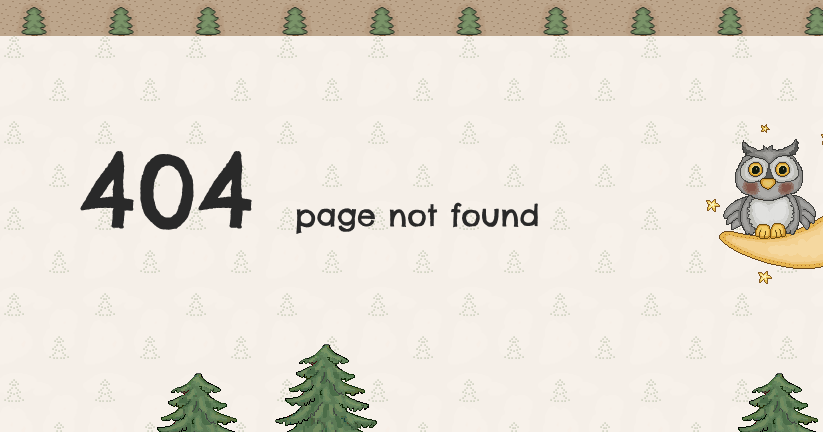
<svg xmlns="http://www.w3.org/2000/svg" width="823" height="432">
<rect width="100%" height="100%" fill="#fff"/>
<image x="0" y="0" width="823" height="36" href="media/1.png"/>
<image x="0" y="36" width="823" height="396" href="media/2.png"/>
<text x="79" y="226" style="font-family:Chelsea Market;font-size:100px;fill:#292929">404</text>
<text x="295" y="226" style="font-family:Chelsea Market;font-size:30px;fill:#292929">page not found</text>
<image x="706" y="124" width="117" height="160" href="media/3.png"/>
<image x="157" y="373" width="80" height="59" href="media/4.png"/>
<image x="275" y="344" width="102" height="88" href="media/5.png"/>
<image x="738" y="373" width="80" height="59" href="media/6.png"/>
</svg>
